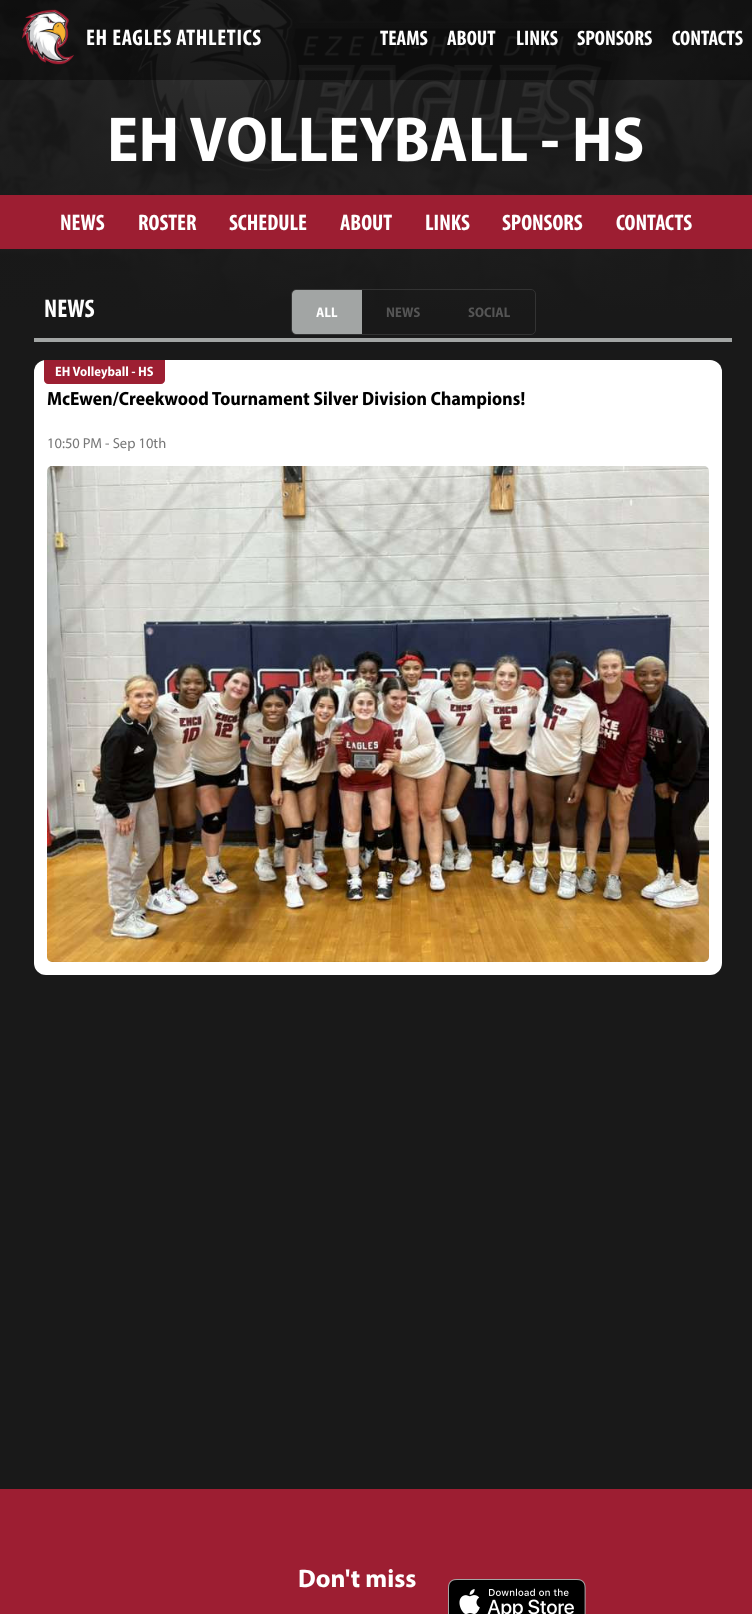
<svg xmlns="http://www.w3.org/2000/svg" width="752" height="1614">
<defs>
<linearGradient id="g1" gradientUnits="userSpaceOnUse" x1="376" y1="-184" x2="376" y2="316"><stop offset="0" stop-color="#191919" stop-opacity="0"/><stop offset="1" stop-color="#191919"/></linearGradient>
</defs>
<rect width="100%" height="100%" fill="#191919"/>
<image x="0" y="0" width="752" height="313" href="media/3.png"/>
<rect width="752" height="313" fill="url(#g1)"/>
<rect width="752" height="80" fill="#00000066"/>
<image x="21" y="9" width="53" height="56" href="media/1.png"/>
<text x="86" y="45" style="font-family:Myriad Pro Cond;font-size:22.5px;font-weight:bold;letter-spacing:0.7px;fill:#fff">EH EAGLES ATHLETICS</text>
<text x="380" y="45" style="font-family:Myriad Pro Cond;font-size:21px;font-weight:bold;fill:#fff">TEAMS</text>
<text x="447" y="45" style="font-family:Myriad Pro Cond;font-size:21px;font-weight:bold;fill:#fff">ABOUT</text>
<text x="516" y="45" style="font-family:Myriad Pro Cond;font-size:21px;font-weight:bold;fill:#fff">LINKS</text>
<text x="577" y="45" style="font-family:Myriad Pro Cond;font-size:21px;font-weight:bold;fill:#fff">SPONSORS</text>
<text x="672" y="45" style="font-family:Myriad Pro Cond;font-size:21px;font-weight:bold;fill:#fff">CONTACTS</text>
<image x="111" y="117" width="532" height="45" href="media/2.png"/>
<rect y="195" width="752" height="54" fill="#9d1e32"/>
<text x="60" y="230" style="font-family:Myriad Pro Cond;font-size:22.5px;font-weight:bold;fill:#fff">NEWS</text>
<text x="138" y="230" style="font-family:Myriad Pro Cond;font-size:22.5px;font-weight:bold;fill:#fff">ROSTER</text>
<text x="229" y="230" style="font-family:Myriad Pro Cond;font-size:22.5px;font-weight:bold;fill:#fff">SCHEDULE</text>
<text x="340" y="230" style="font-family:Myriad Pro Cond;font-size:22.5px;font-weight:bold;fill:#fff">ABOUT</text>
<text x="425" y="230" style="font-family:Myriad Pro Cond;font-size:22.5px;font-weight:bold;fill:#fff">LINKS</text>
<text x="502" y="230" style="font-family:Myriad Pro Cond;font-size:22.5px;font-weight:bold;fill:#fff">SPONSORS</text>
<text x="616" y="230" style="font-family:Myriad Pro Cond;font-size:22.5px;font-weight:bold;fill:#fff">CONTACTS</text>
<rect x="34" y="338" width="698" height="4" fill="#a2a5a4"/>
<text x="44" y="317" style="font-family:Myriad Pro Cond;font-size:25.5px;font-weight:bold;fill:#fff">NEWS</text>
<rect x="291.5" y="289.5" width="244" height="45" rx="4.5" fill="none" stroke="#333"/>
<path d="M296 290h66v44h-66c-2 0-4-2-4-4v-36c0-2 2-4 4-4z" fill="#a2a5a4"/>
<image x="316" y="307" width="22" height="10" href="media/4.png"/>
<image x="386" y="307" width="34" height="11" href="media/5.png"/>
<image x="468" y="307" width="42" height="11" href="media/6.png"/>
<rect x="34" y="360" width="688" height="615" rx="12" fill="#fff"/>
<path d="M44 360h121v20c0 2-2 4-4 4h-113c-2 0-4-2-4-4z" fill="#9d1f32"/>
<image x="55" y="366" width="98" height="13" href="media/7.png"/>
<image x="47" y="391" width="478" height="18" href="media/8.png"/>
<text x="47" y="448" style="font-family:Myriad;font-size:14.5px;fill:#777">10:50 PM - Sep 10th</text>
<image x="47" y="466" width="662" height="496" href="media/9.png"/>
<rect y="1489" width="752" height="125" fill="#9d1e32"/>
<text x="298" y="1587" style="font-family:Myriad;font-size:25.5px;font-weight:bold;fill:#fff">Don't miss</text>
<image x="448" y="1579" width="138" height="35" href="media/10.png"/>
</svg>
